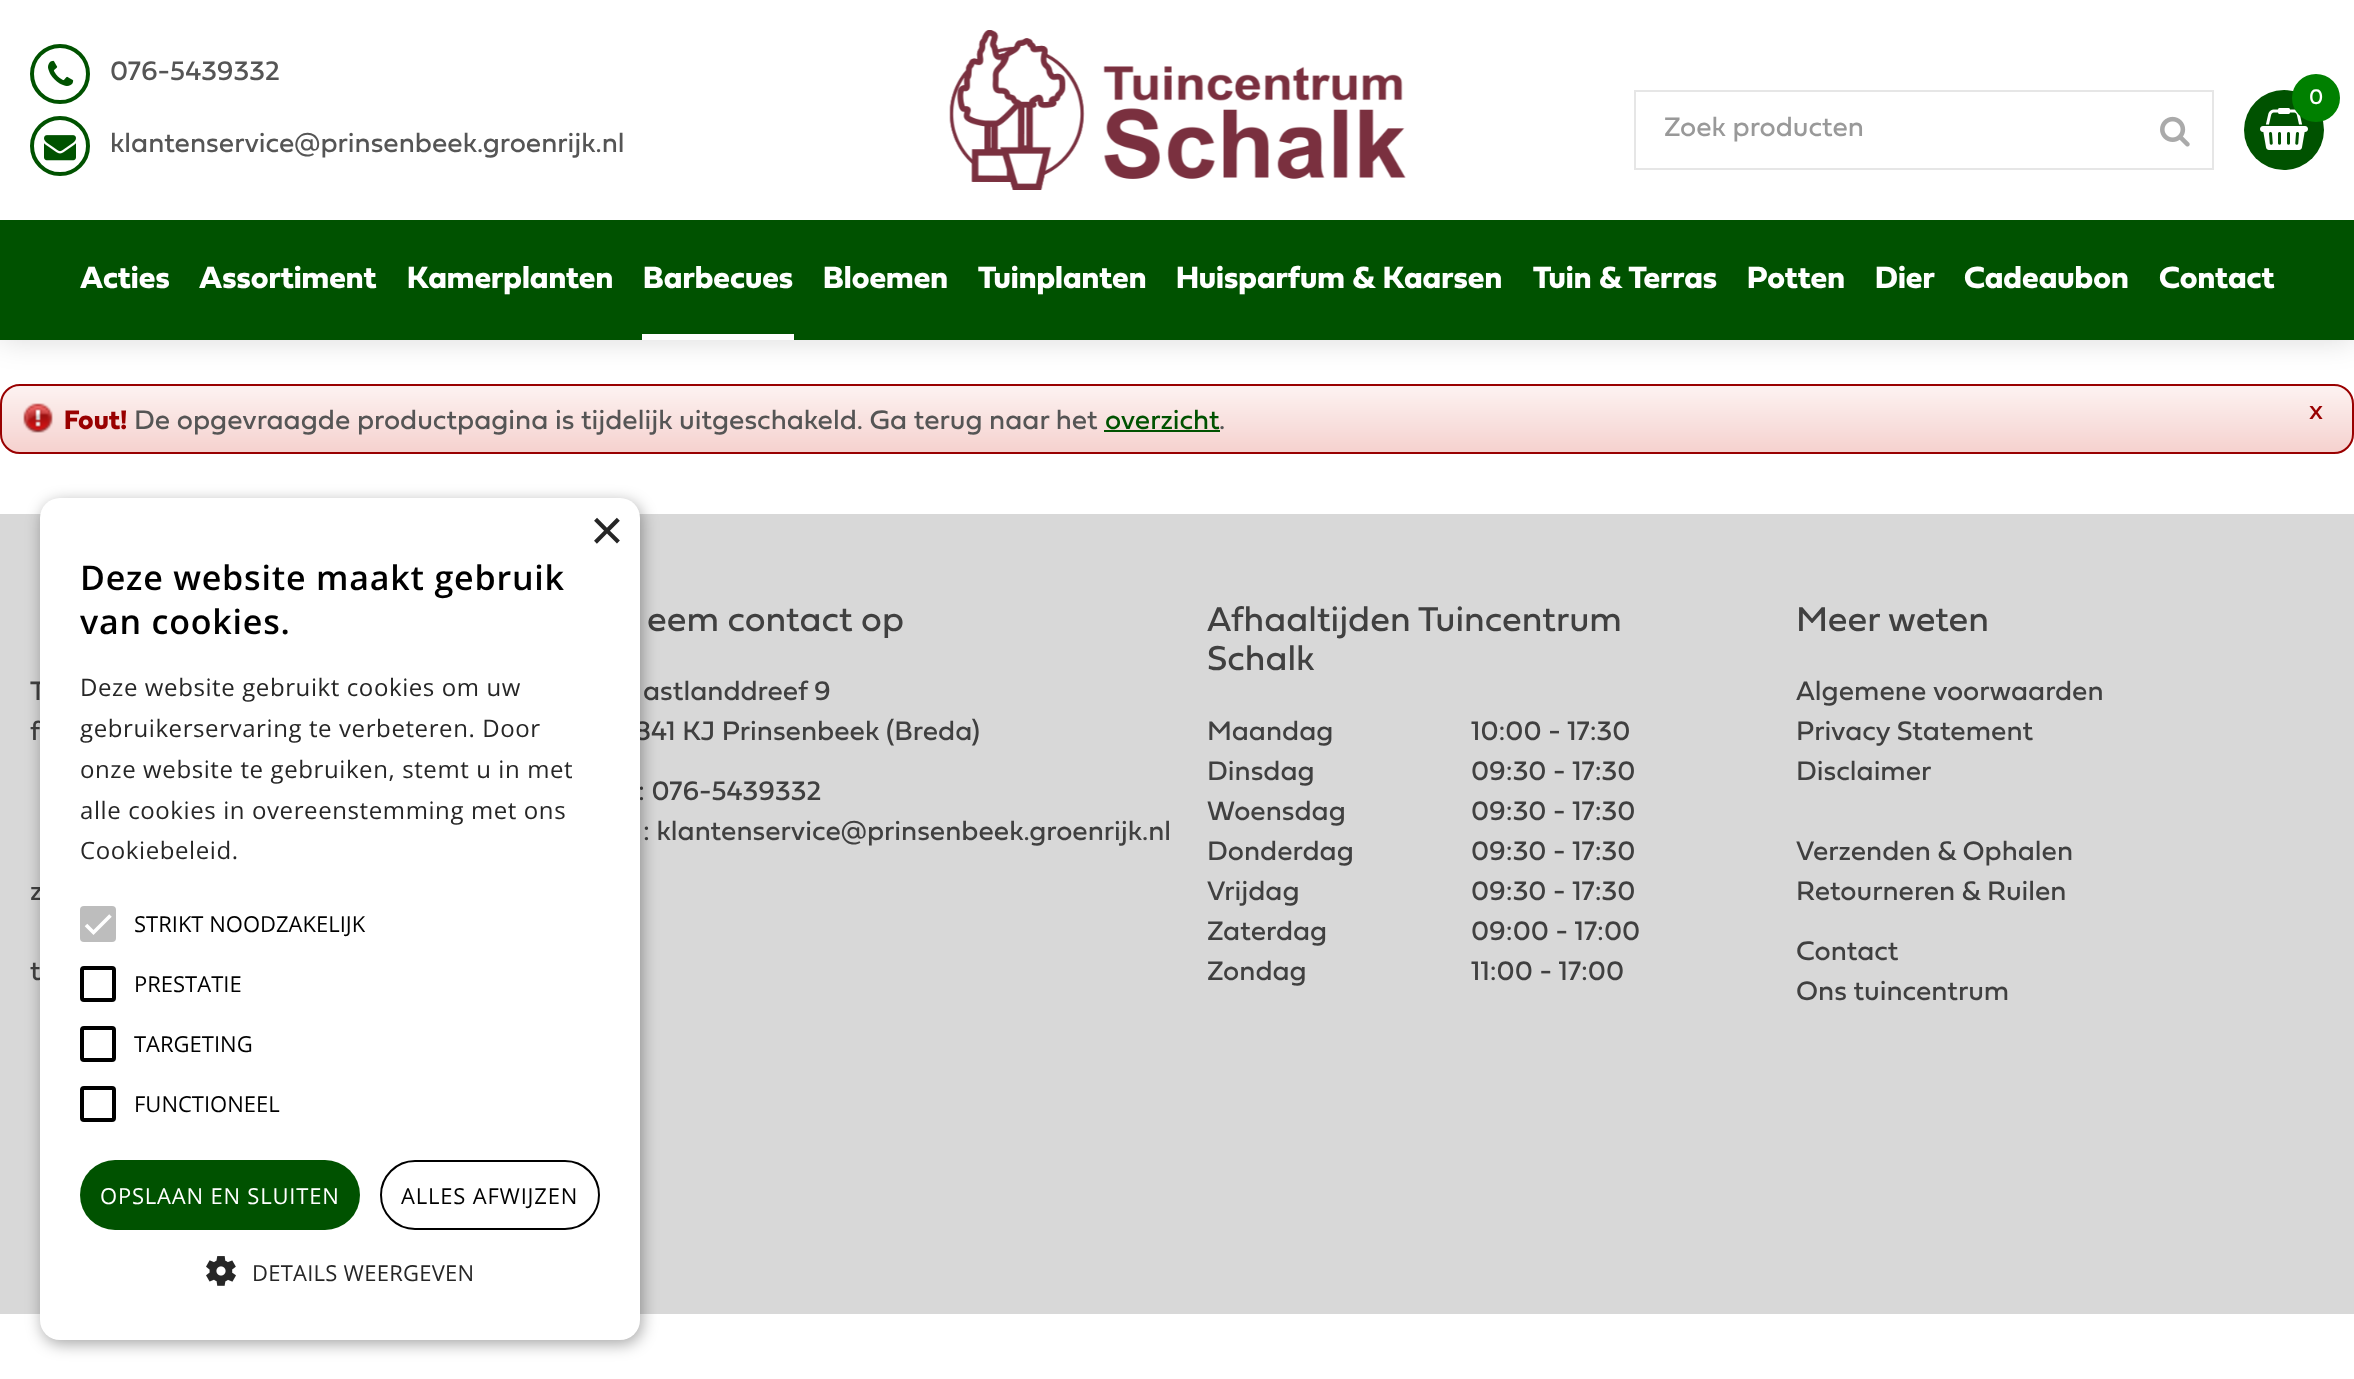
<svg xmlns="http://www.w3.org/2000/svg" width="2354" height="1379">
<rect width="100%" height="100%" fill="#fff"/>
<image x="0" y="386" width="2354" height="68" href="media/6.png"/>
<rect x="1" y="385" width="2352" height="68" rx="19" fill="none" stroke="#900" stroke-width="2"/>
<rect width="2354" height="340" fill="#00000026" filter="blur(15px)"/>
<rect width="2354" height="220" fill="#fff"/>
<circle cx="60" cy="74" r="28" fill="none" stroke="#005200" stroke-width="4"/>
<image x="48" y="60" width="26" height="26" href="media/1.png"/>
<text x="110" y="80" style="font-family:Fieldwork;font-size:28px;fill:#555">076-5439332</text>
<circle cx="60" cy="146" r="28" fill="none" stroke="#005200" stroke-width="4"/>
<image x="44" y="135" width="32" height="26" href="media/2.png"/>
<text x="110" y="152" style="font-family:Fieldwork;font-size:28px;fill:#555">klantenservice@prinsenbeek.groenrijk.nl</text>
<image x="949" y="30" width="457" height="160" href="media/3.png"/>
<circle cx="2284" cy="130" r="40" fill="#005200"/>
<image x="2260" y="108" width="48" height="42" href="media/4.png"/>
<circle cx="2316" cy="98" r="24" fill="#008000"/>
<text x="2309" y="104" style="font-family:Fieldwork;font-size:22px;fill:#fff">0</text>
<rect x="1635" y="91" width="578" height="78" fill="none" stroke="#e6e6e6" stroke-width="2"/>
<text x="1664" y="136" style="font-family:Fieldwork;font-size:28px;fill:#999">Zoek producten</text>
<image x="2160" y="116" width="30" height="31" href="media/5.png"/>
<rect y="220" width="2354" height="120" fill="#005200"/>
<text x="80" y="288" style="font-family:Fieldwork;font-size:32px;font-weight:bold;fill:#fff">Acties</text>
<text x="199" y="288" style="font-family:Fieldwork;font-size:32px;font-weight:bold;fill:#fff">Assortiment</text>
<text x="407" y="288" style="font-family:Fieldwork;font-size:32px;font-weight:bold;fill:#fff">Kamerplanten</text>
<text x="643" y="288" style="font-family:Fieldwork;font-size:32px;font-weight:bold;fill:#fff">Barbecues</text>
<rect x="642" y="334" width="152" height="6" fill="#fff"/>
<text x="823" y="288" style="font-family:Fieldwork;font-size:32px;font-weight:bold;fill:#fff">Bloemen</text>
<text x="978" y="288" style="font-family:Fieldwork;font-size:32px;font-weight:bold;fill:#fff">Tuinplanten</text>
<text x="1176" y="288" style="font-family:Fieldwork;font-size:32px;font-weight:bold;fill:#fff">Huisparfum &amp; Kaarsen</text>
<text x="1533" y="288" style="font-family:Fieldwork;font-size:32px;font-weight:bold;fill:#fff">Tuin &amp; Terras</text>
<text x="1747" y="288" style="font-family:Fieldwork;font-size:32px;font-weight:bold;fill:#fff">Potten</text>
<text x="1875" y="288" style="font-family:Fieldwork;font-size:32px;font-weight:bold;fill:#fff">Dier</text>
<text x="1964" y="288" style="font-family:Fieldwork;font-size:32px;font-weight:bold;fill:#fff">Cadeaubon</text>
<text x="2159" y="288" style="font-family:Fieldwork;font-size:32px;font-weight:bold;fill:#fff">Contact</text>
<image x="23" y="403" width="30" height="30" href="media/7.png"/>
<text x="64" y="429" style="font-family:Fieldwork;font-size:28px;font-weight:bold;fill:#900">Fout!</text>
<text x="134" y="429" style="font-family:Fieldwork;font-size:28px;fill:#555">De opgevraagde productpagina is tijdelijk uitgeschakeld. Ga terug naar het</text>
<text x="1105" y="429" style="font-family:Fieldwork;font-size:28px;fill:#005200">overzicht</text>
<rect x="1104" y="430" width="116" height="2" fill="#005200"/>
<text x="1219" y="429" style="font-family:Fieldwork;font-size:28px;fill:#555">.</text>
<text x="2309" y="419" style="font-family:Fieldwork;font-size:28px;fill:#900">x</text>
<rect y="514" width="2354" height="800" fill="#d8d8d8"/>
<text x="30" y="700" style="font-family:Fieldwork;font-size:28px;fill:#404040">T</text>
<text x="30" y="740" style="font-family:Fieldwork;font-size:28px;fill:#404040">f</text>
<text x="30" y="900" style="font-family:Fieldwork;font-size:28px;fill:#404040">z</text>
<text x="30" y="980" style="font-family:Fieldwork;font-size:28px;fill:#404040">t</text>
<text x="647" y="631" style="font-family:Fieldwork;font-size:36px;fill:#404040">eem contact op</text>
<text x="643" y="700" style="font-family:Fieldwork;font-size:28px;fill:#404040">astlanddreef 9</text>
<text x="634" y="740" style="font-family:Fieldwork;font-size:28px;fill:#404040">841 KJ Prinsenbeek (Breda)</text>
<text x="638" y="800" style="font-family:Fieldwork;font-size:28px;fill:#404040">: 076-5439332</text>
<text x="643" y="840" style="font-family:Fieldwork;font-size:28px;fill:#404040">: klantenservice@prinsenbeek.groenrijk.nl</text>
<text x="1207" y="631" style="font-family:Fieldwork;font-size:36px;fill:#404040">Afhaaltijden Tuincentrum</text>
<text x="1207" y="670" style="font-family:Fieldwork;font-size:36px;fill:#404040">Schalk</text>
<text x="1207" y="740" style="font-family:Fieldwork;font-size:28px;fill:#404040">Maandag</text>
<text x="1471" y="740" style="font-family:Fieldwork;font-size:28px;fill:#404040">10:00 - 17:30</text>
<text x="1207" y="780" style="font-family:Fieldwork;font-size:28px;fill:#404040">Dinsdag</text>
<text x="1471" y="780" style="font-family:Fieldwork;font-size:28px;fill:#404040">09:30 - 17:30</text>
<text x="1207" y="820" style="font-family:Fieldwork;font-size:28px;fill:#404040">Woensdag</text>
<text x="1471" y="820" style="font-family:Fieldwork;font-size:28px;fill:#404040">09:30 - 17:30</text>
<text x="1207" y="860" style="font-family:Fieldwork;font-size:28px;fill:#404040">Donderdag</text>
<text x="1471" y="860" style="font-family:Fieldwork;font-size:28px;fill:#404040">09:30 - 17:30</text>
<text x="1207" y="900" style="font-family:Fieldwork;font-size:28px;fill:#404040">Vrijdag</text>
<text x="1471" y="900" style="font-family:Fieldwork;font-size:28px;fill:#404040">09:30 - 17:30</text>
<text x="1207" y="940" style="font-family:Fieldwork;font-size:28px;fill:#404040">Zaterdag</text>
<text x="1471" y="940" style="font-family:Fieldwork;font-size:28px;fill:#404040">09:00 - 17:00</text>
<text x="1207" y="980" style="font-family:Fieldwork;font-size:28px;fill:#404040">Zondag</text>
<text x="1471" y="980" style="font-family:Fieldwork;font-size:28px;fill:#404040">11:00 - 17:00</text>
<text x="1796" y="631" style="font-family:Fieldwork;font-size:36px;fill:#404040">Meer weten</text>
<text x="1796" y="700" style="font-family:Fieldwork;font-size:28px;fill:#404040">Algemene voorwaarden</text>
<text x="1796" y="740" style="font-family:Fieldwork;font-size:28px;fill:#404040">Privacy Statement</text>
<text x="1796" y="780" style="font-family:Fieldwork;font-size:28px;fill:#404040">Disclaimer</text>
<text x="1796" y="860" style="font-family:Fieldwork;font-size:28px;fill:#404040">Verzenden &amp; Ophalen</text>
<text x="1796" y="900" style="font-family:Fieldwork;font-size:28px;fill:#404040">Retourneren &amp; Ruilen</text>
<text x="1796" y="960" style="font-family:Fieldwork;font-size:28px;fill:#404040">Contact</text>
<text x="1796" y="1000" style="font-family:Fieldwork;font-size:28px;fill:#404040">Ons tuincentrum</text>
<rect x="42" y="502" width="600" height="842" rx="20" fill="#00000059" filter="blur(8px)"/>
<rect x="40" y="498" width="600" height="842" rx="20" fill="#fff"/>
<text x="590" y="550" style="font-family:Liberation Sans;font-size:58px;fill:#262626">×</text>
<text x="80" y="590" style="font-family:Open Sans;font-size:34px;font-weight:600;letter-spacing:0.8px;fill:#000">Deze website maakt gebruik</text>
<text x="80" y="634" style="font-family:Open Sans;font-size:34px;font-weight:600;letter-spacing:0.8px;fill:#000">van cookies.</text>
<text x="80" y="696" style="font-family:Open Sans;font-size:24px;letter-spacing:0.6px;fill:#262626">Deze website gebruikt cookies om uw</text>
<text x="80" y="737" style="font-family:Open Sans;font-size:24px;letter-spacing:0.6px;fill:#262626">gebruikerservaring te verbeteren. Door</text>
<text x="80" y="778" style="font-family:Open Sans;font-size:24px;letter-spacing:0.6px;fill:#262626">onze website te gebruiken, stemt u in met</text>
<text x="80" y="819" style="font-family:Open Sans;font-size:24px;letter-spacing:0.6px;fill:#262626">alle cookies in overeenstemming met ons</text>
<text x="80" y="859" style="font-family:Open Sans;font-size:24px;letter-spacing:0.6px;fill:#262626">Cookiebeleid.</text>
<rect x="80" y="906" width="36" height="36" rx="4" fill="#bdbdbd"/>
<path d="M86 925l7.5 7.5l17-17" fill="none" stroke="#fff" stroke-width="3.6"/>
<text x="134" y="932" style="font-family:Open Sans;font-size:22px;fill:#000">STRIKT NOODZAKELIJK</text>
<rect x="82" y="968" width="32" height="32" rx="2" fill="none" stroke="#000" stroke-width="4"/>
<text x="134" y="992" style="font-family:Open Sans;font-size:22px;fill:#000">PRESTATIE</text>
<rect x="82" y="1028" width="32" height="32" rx="2" fill="none" stroke="#000" stroke-width="4"/>
<text x="134" y="1052" style="font-family:Open Sans;font-size:22px;fill:#000">TARGETING</text>
<rect x="82" y="1088" width="32" height="32" rx="2" fill="none" stroke="#000" stroke-width="4"/>
<text x="134" y="1112" style="font-family:Open Sans;font-size:22px;fill:#000">FUNCTIONEEL</text>
<rect x="80" y="1160" width="280" height="70" rx="35" fill="#005200"/>
<text x="100" y="1204" style="font-family:Open Sans;font-size:22px;letter-spacing:0.8px;fill:#fff">OPSLAAN EN SLUITEN</text>
<rect x="381" y="1161" width="218" height="68" rx="34" fill="none" stroke="#000" stroke-width="2"/>
<text x="401" y="1204" style="font-family:Open Sans;font-size:22px;letter-spacing:0.8px;fill:#000">ALLES AFWIJZEN</text>
<image x="206" y="1256" width="30" height="30" href="media/8.png"/>
<text x="252" y="1281" style="font-family:Open Sans;font-size:22px;letter-spacing:0.25px;fill:#262626">DETAILS WEERGEVEN</text>
</svg>
